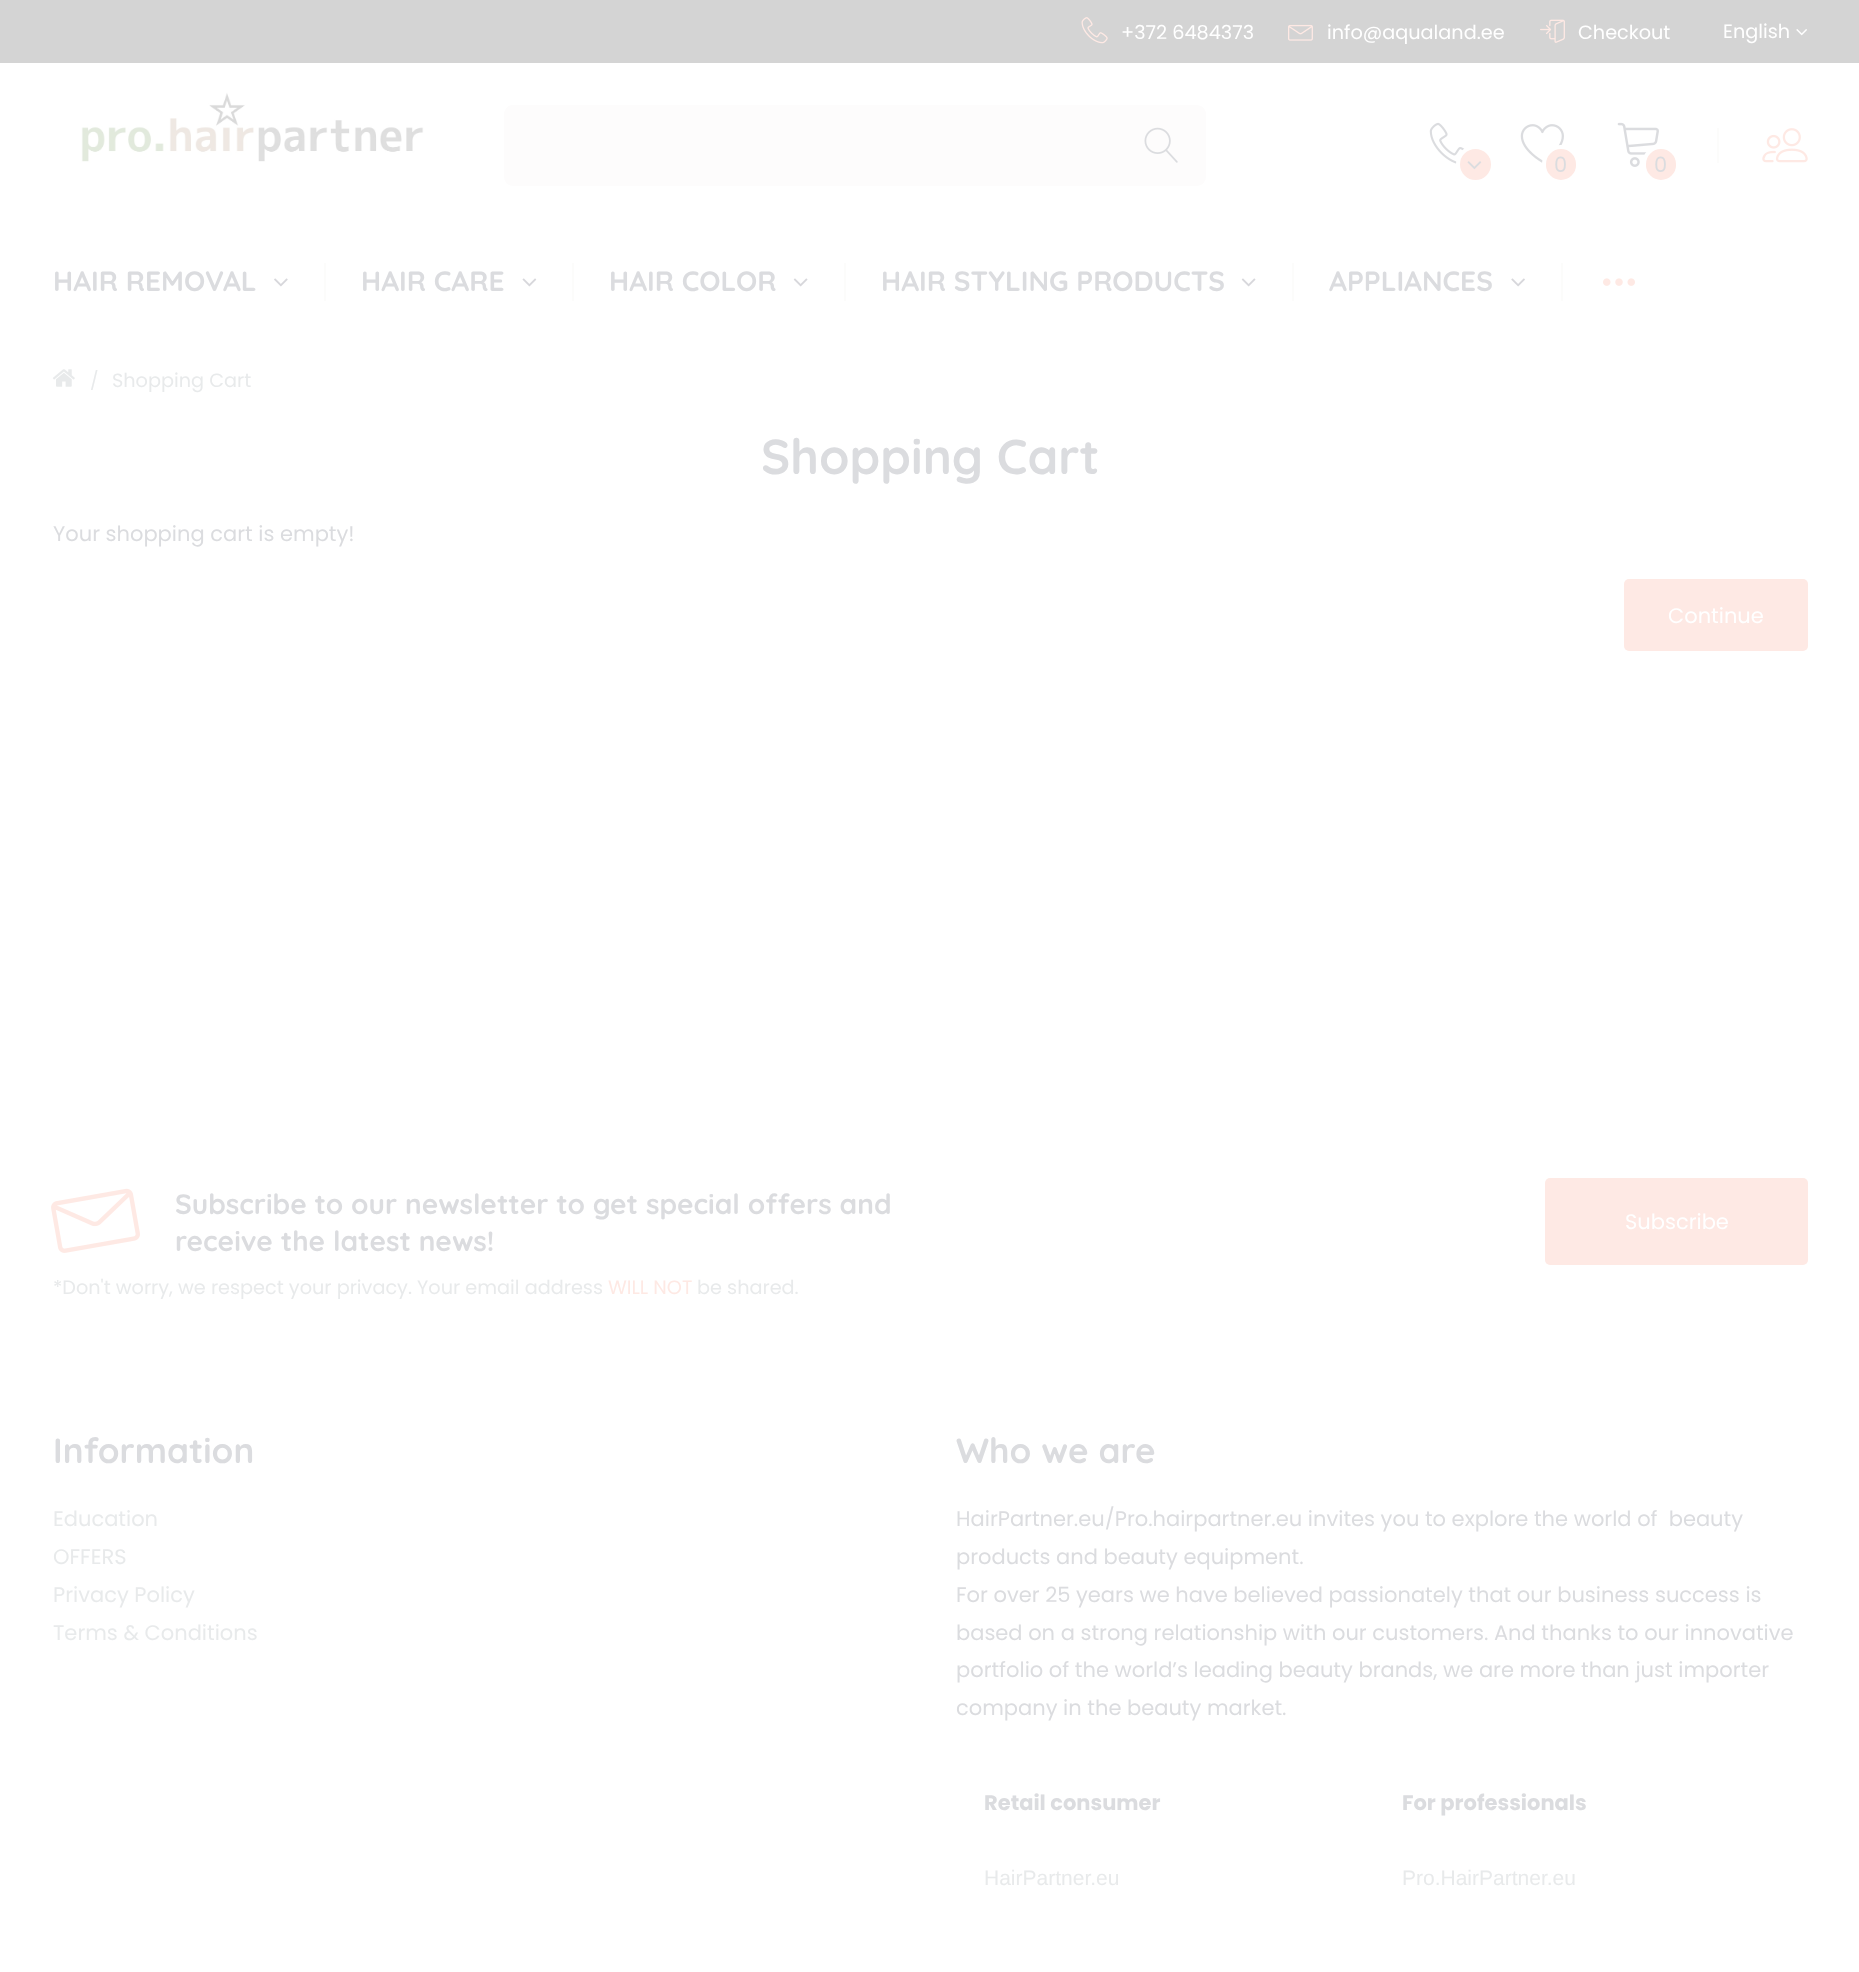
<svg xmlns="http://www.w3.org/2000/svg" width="1859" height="1972">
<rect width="100%" height="100%" fill="#fff"/>
<rect width="1859" height="63" fill="#d4d4d4"/>
<image x="1081" y="17" width="27" height="27" href="media/1.png"/>
<text x="1121" y="39" style="font-family:Poppins;font-size:19.25px;fill:#fff">+372 6484373</text>
<image x="1288" y="24" width="25" height="17" href="media/2.png"/>
<text x="1327" y="39" style="font-family:Poppins;font-size:19.25px;fill:#fff">info@aqualand.ee</text>
<image x="1540" y="19" width="25" height="24" href="media/3.png"/>
<text x="1578" y="39" style="font-family:Poppins;font-size:19.25px;fill:#fff">Checkout</text>
<text x="1723" y="38" style="font-family:Poppins;font-size:19.25px;fill:#fff">English</text>
<image x="1796" y="29" width="11" height="7" href="media/4.png"/>
<image x="80" y="92" width="344" height="71" href="media/5.png"/>
<rect x="504" y="105" width="702" height="81" rx="9" fill="#fdfcfc"/>
<image x="1144" y="127" width="34" height="36" href="media/6.png"/>
<image x="1429" y="122" width="36" height="42" href="media/7.png"/>
<circle cx="1475.5" cy="164.5" r="17.5" fill="#fee9e4" stroke="#fff" stroke-width="4"/>
<image x="1467" y="161" width="15" height="9" href="media/8.png"/>
<image x="1520" y="124" width="44" height="39" href="media/9.png"/>
<rect x="1544" y="147" width="34" height="35" rx="17" fill="#fee9e4" stroke="#fff" stroke-width="4"/>
<text x="1554" y="172" style="font-family:Poppins;font-size:21px;fill:#dbdcdf">0</text>
<image x="1617" y="122" width="42" height="45" href="media/10.png"/>
<rect x="1644" y="147" width="34" height="35" rx="17" fill="#fee9e4" stroke="#fff" stroke-width="4"/>
<text x="1654" y="172" style="font-family:Poppins;font-size:21px;fill:#dbdcdf">0</text>
<rect x="1717" y="128" width="2" height="35" fill="#fcfcfb"/>
<image x="1762" y="128" width="46" height="35" href="media/11.png"/>
<text x="53" y="291" style="font-family:Quicksand;font-size:28px;font-weight:bold;fill:#dbdcdf">HAIR REMOVAL</text>
<image x="274" y="278" width="14" height="9" href="media/12.png"/>
<rect x="324" y="263" width="2" height="38" fill="#fcfcfb"/>
<text x="361" y="291" style="font-family:Quicksand;font-size:28px;font-weight:bold;fill:#dbdcdf">HAIR CARE</text>
<image x="522" y="278" width="15" height="9" href="media/13.png"/>
<rect x="572" y="263" width="2" height="38" fill="#fcfcfb"/>
<text x="609" y="291" style="font-family:Quicksand;font-size:28px;font-weight:bold;fill:#dbdcdf">HAIR COLOR</text>
<image x="793" y="278" width="15" height="9" href="media/14.png"/>
<rect x="844" y="263" width="2" height="38" fill="#fcfcfb"/>
<text x="881" y="291" style="font-family:Quicksand;font-size:28px;font-weight:bold;fill:#dbdcdf">HAIR STYLING PRODUCTS</text>
<image x="1241" y="278" width="15" height="9" href="media/14.png"/>
<rect x="1292" y="263" width="2" height="38" fill="#fcfcfb"/>
<text x="1329" y="291" style="font-family:Quicksand;font-size:28px;font-weight:bold;fill:#dbdcdf">APPLIANCES</text>
<image x="1511" y="278" width="14" height="9" href="media/15.png"/>
<rect x="1561" y="263" width="2" height="38" fill="#fcfcfb"/>
<image x="1603" y="278" width="8" height="8" href="media/16.png"/>
<image x="1615" y="278" width="8" height="8" href="media/17.png"/>
<image x="1627" y="278" width="8" height="8" href="media/18.png"/>
<image x="52" y="369" width="23" height="18" href="media/19.png"/>
<text x="90" y="387" style="font-family:Poppins;font-size:18px;fill:#e8eaeb">/</text>
<text x="112" y="387" style="font-family:Poppins;font-size:19.25px;fill:#e8eaeb">Shopping Cart</text>
<text x="761" y="474" style="font-family:Quicksand;font-size:49px;font-weight:bold;fill:#dbdcdf">Shopping Cart</text>
<text x="53" y="541" style="font-family:Poppins;font-size:21px;fill:#dbdcdf">Your shopping cart is empty!</text>
<rect x="1624" y="579" width="184" height="72" rx="5" fill="#fee9e4"/>
<text x="1668" y="623" style="font-family:Poppins;font-size:21px;fill:#fff">Continue</text>
<image x="51" y="1188" width="89" height="65" href="media/20.png"/>
<text x="175" y="1214" style="font-family:Quicksand;font-size:28px;font-weight:bold;fill:#dbdcdf">Subscribe to our newsletter to get special offers and</text>
<text x="175" y="1251" style="font-family:Quicksand;font-size:28px;font-weight:bold;fill:#dbdcdf">receive the latest news!</text>
<text x="53" y="1294" style="font-family:Poppins;font-size:19.25px;fill:#e8eaeb">*Don't worry, we respect your privacy. Your email address</text>
<text x="608" y="1294" style="font-family:Poppins;font-size:19.25px;fill:#fee9e4">WILL NOT</text>
<text x="697" y="1294" style="font-family:Poppins;font-size:19.25px;fill:#e8eaeb">be shared.</text>
<rect x="1545" y="1178" width="263" height="87" rx="5" fill="#fee9e4"/>
<text x="1625" y="1229" style="font-family:Poppins;font-size:21px;fill:#fff">Subscribe</text>
<text x="53" y="1463" style="font-family:Quicksand;font-size:35px;font-weight:bold;fill:#dbdcdf">Information</text>
<text x="53" y="1526" style="font-family:Poppins;font-size:21px;fill:#e8eaeb">Education</text>
<text x="53" y="1564" style="font-family:Poppins;font-size:21px;fill:#e8eaeb">OFFERS</text>
<text x="53" y="1602" style="font-family:Poppins;font-size:21px;fill:#e8eaeb">Privacy Policy</text>
<text x="53" y="1640" style="font-family:Poppins;font-size:21px;fill:#e8eaeb">Terms &amp; Conditions</text>
<text x="956" y="1463" style="font-family:Quicksand;font-size:35px;font-weight:bold;fill:#dbdcdf">Who we are</text>
<text x="956" y="1526" style="font-family:Poppins;font-size:21px;fill:#dbdcdf" xml:space="preserve">HairPartner.eu/Pro.hairpartner.eu invites you to explore the world of  beauty</text>
<text x="956" y="1564" style="font-family:Poppins;font-size:21px;fill:#dbdcdf">products and beauty equipment.</text>
<text x="956" y="1602" style="font-family:Poppins;font-size:21px;fill:#dbdcdf">For over 25 years we have believed passionately that our business success is</text>
<text x="956" y="1640" style="font-family:Poppins;font-size:21px;fill:#dbdcdf">based on a strong relationship with our customers. And thanks to our innovative</text>
<text x="956" y="1677" style="font-family:Poppins;font-size:21px;fill:#dbdcdf">portfolio of the world’s leading beauty brands, we are more than just importer</text>
<text x="956" y="1715" style="font-family:Poppins;font-size:21px;fill:#dbdcdf">company in the beauty market.</text>
<text x="984" y="1810" style="font-family:Poppins;font-size:21px;font-weight:bold;fill:#dbdcdf">Retail consumer</text>
<text x="1402" y="1810" style="font-family:Poppins;font-size:21px;font-weight:bold;fill:#dbdcdf">For professionals</text>
<text x="984" y="1885" style="font-family:Liberation Sans;font-size:21px;fill:#e8eaeb">HairPartner.eu</text>
<text x="1402" y="1885" style="font-family:Liberation Sans;font-size:21px;fill:#e8eaeb">Pro.HairPartner.eu</text>
</svg>
